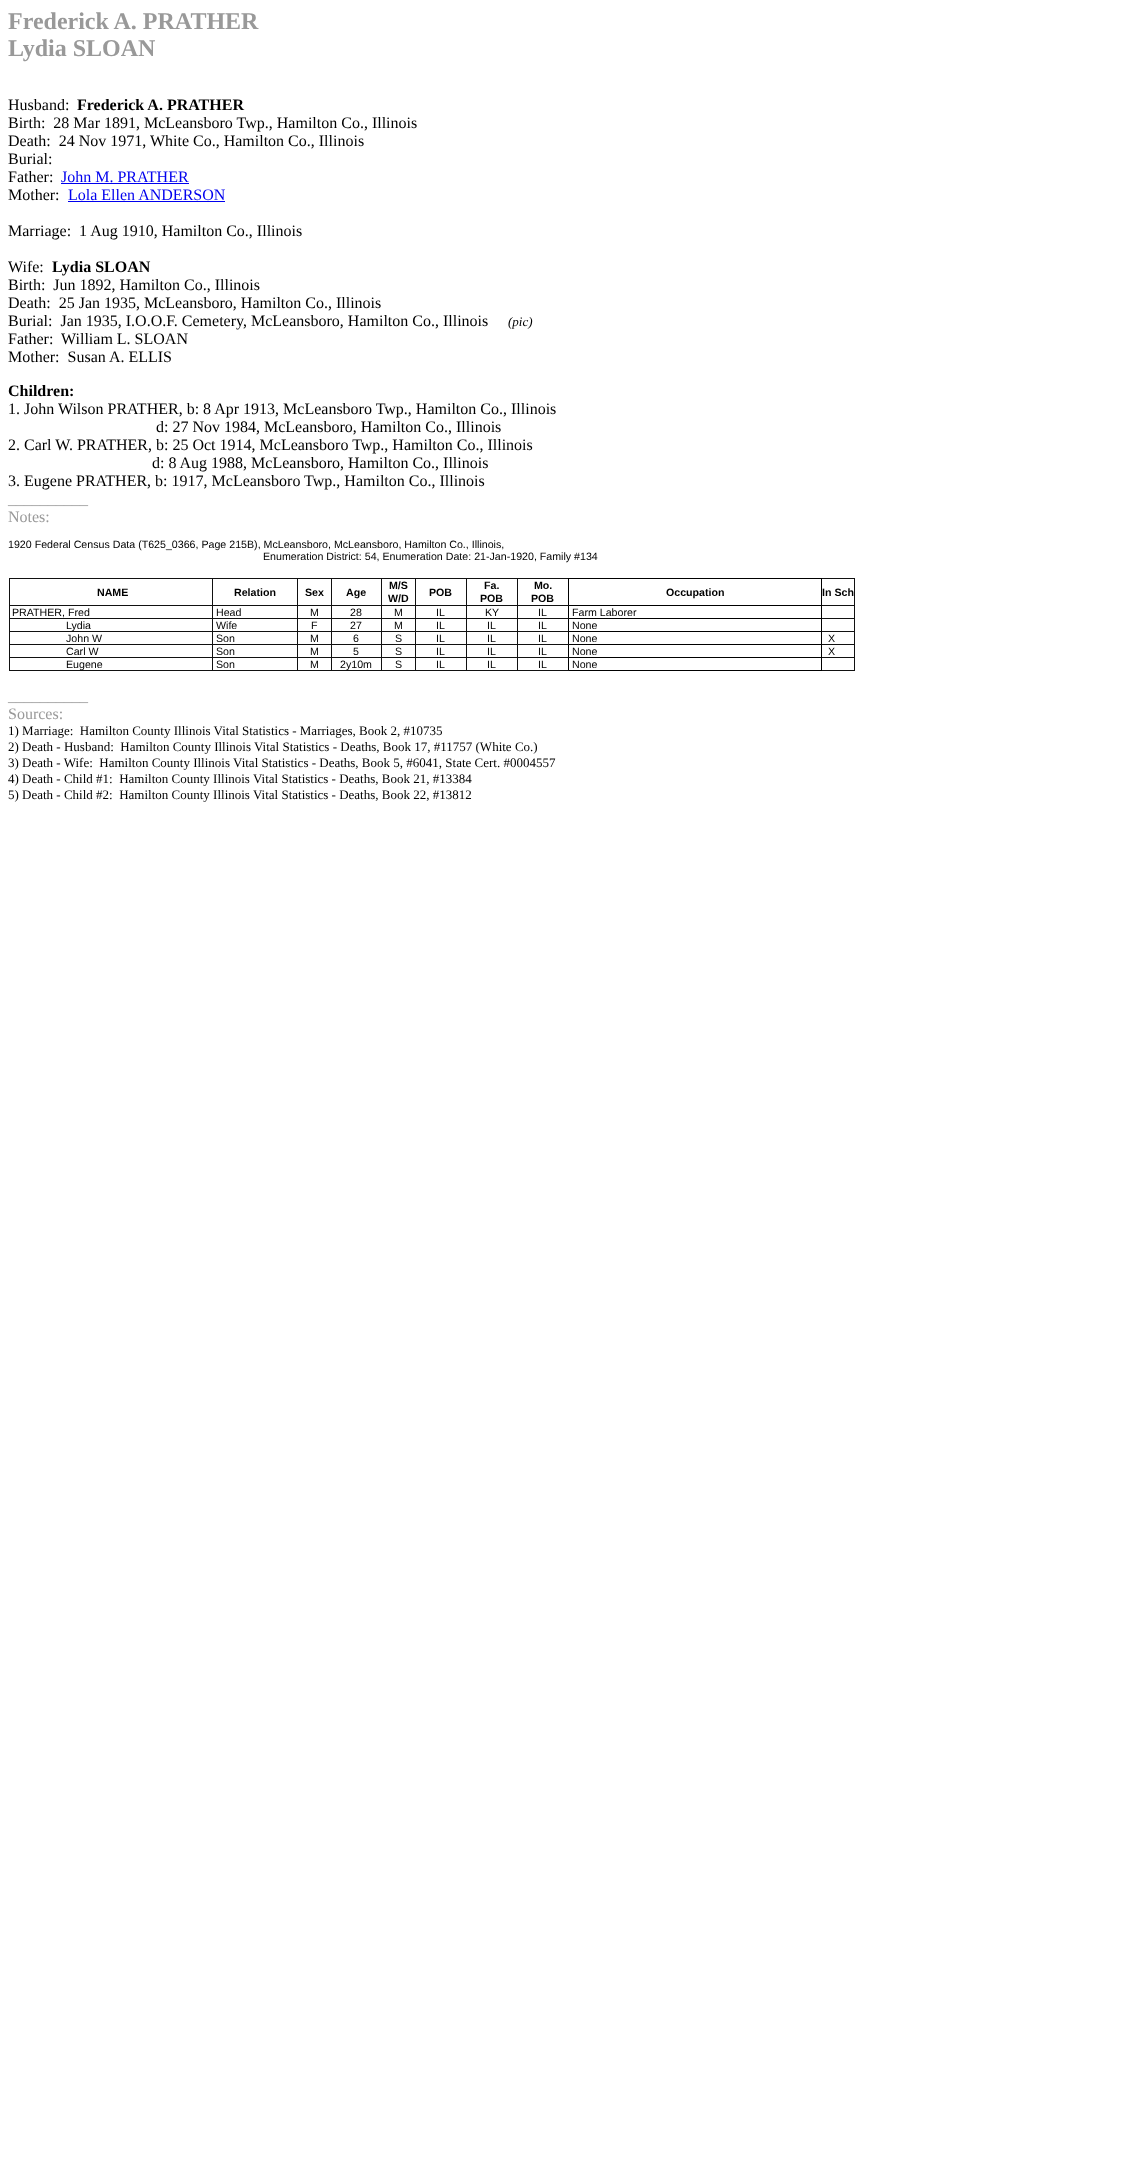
<svg xmlns="http://www.w3.org/2000/svg" width="1148" height="2176">
<rect width="100%" height="100%" fill="#fff"/>
<text x="8" y="29" style="font-family:Liberation Serif;font-size:24px;font-weight:bold;fill:#999">Frederick A. PRATHER</text>
<text x="8" y="56" style="font-family:Liberation Serif;font-size:24px;font-weight:bold;fill:#999">Lydia SLOAN</text>
<text x="8" y="110" style="font-family:Liberation Serif;font-size:16px;fill:#000">Husband:</text>
<text x="77" y="110" style="font-family:Liberation Serif;font-size:16px;font-weight:bold;fill:#000">Frederick A. PRATHER</text>
<text x="8" y="128" style="font-family:Liberation Serif;font-size:16px;fill:#000" xml:space="preserve">Birth:  28 Mar 1891, McLeansboro Twp., Hamilton Co., Illinois</text>
<text x="8" y="146" style="font-family:Liberation Serif;font-size:16px;fill:#000" xml:space="preserve">Death:  24 Nov 1971, White Co., Hamilton Co., Illinois</text>
<text x="8" y="164" style="font-family:Liberation Serif;font-size:16px;fill:#000">Burial:</text>
<text x="8" y="182" style="font-family:Liberation Serif;font-size:16px;fill:#000">Father:</text>
<text x="61" y="182" style="font-family:Liberation Serif;font-size:16px;fill:#00e">John M. PRATHER</text>
<rect x="61" y="183" width="128" height="1" fill="#00e"/>
<text x="8" y="200" style="font-family:Liberation Serif;font-size:16px;fill:#000">Mother:</text>
<text x="68" y="200" style="font-family:Liberation Serif;font-size:16px;fill:#00e">Lola Ellen ANDERSON</text>
<rect x="68" y="201" width="157" height="1" fill="#00e"/>
<text x="8" y="236" style="font-family:Liberation Serif;font-size:16px;fill:#000" xml:space="preserve">Marriage:  1 Aug 1910, Hamilton Co., Illinois</text>
<text x="8" y="272" style="font-family:Liberation Serif;font-size:16px;fill:#000">Wife:</text>
<text x="52" y="272" style="font-family:Liberation Serif;font-size:16px;font-weight:bold;fill:#000">Lydia SLOAN</text>
<text x="8" y="290" style="font-family:Liberation Serif;font-size:16px;fill:#000" xml:space="preserve">Birth:  Jun 1892, Hamilton Co., Illinois</text>
<text x="8" y="308" style="font-family:Liberation Serif;font-size:16px;fill:#000" xml:space="preserve">Death:  25 Jan 1935, McLeansboro, Hamilton Co., Illinois</text>
<text x="8" y="326" style="font-family:Liberation Serif;font-size:16px;fill:#000" xml:space="preserve">Burial:  Jan 1935, I.O.O.F. Cemetery, McLeansboro, Hamilton Co., Illinois</text>
<text x="508" y="326" style="font-family:Liberation Serif;font-size:13px;font-style:italic;fill:#000">(pic)</text>
<text x="8" y="344" style="font-family:Liberation Serif;font-size:16px;fill:#000" xml:space="preserve">Father:  William L. SLOAN</text>
<text x="8" y="362" style="font-family:Liberation Serif;font-size:16px;fill:#000" xml:space="preserve">Mother:  Susan A. ELLIS</text>
<text x="8" y="396" style="font-family:Liberation Serif;font-size:16px;font-weight:bold;fill:#000">Children:</text>
<text x="8" y="414" style="font-family:Liberation Serif;font-size:16px;fill:#000">1. John Wilson PRATHER, b: 8 Apr 1913, McLeansboro Twp., Hamilton Co., Illinois</text>
<text x="156" y="432" style="font-family:Liberation Serif;font-size:16px;fill:#000">d: 27 Nov 1984, McLeansboro, Hamilton Co., Illinois</text>
<text x="8" y="450" style="font-family:Liberation Serif;font-size:16px;fill:#000">2. Carl W. PRATHER, b: 25 Oct 1914, McLeansboro Twp., Hamilton Co., Illinois</text>
<text x="152" y="468" style="font-family:Liberation Serif;font-size:16px;fill:#000">d: 8 Aug 1988, McLeansboro, Hamilton Co., Illinois</text>
<text x="8" y="486" style="font-family:Liberation Serif;font-size:16px;fill:#000">3. Eugene PRATHER, b: 1917, McLeansboro Twp., Hamilton Co., Illinois</text>
<text x="8" y="504" style="font-family:Liberation Serif;font-size:16px;fill:#999">__________</text>
<text x="8" y="522" style="font-family:Liberation Serif;font-size:16px;fill:#999">Notes:</text>
<text x="8" y="548" style="font-family:Liberation Sans;font-size:10.65px;fill:#000">1920 Federal Census Data (T625_0366, Page 215B), McLeansboro, McLeansboro, Hamilton Co., Illinois,</text>
<text x="263" y="560" style="font-family:Liberation Sans;font-size:10.65px;fill:#000">Enumeration District: 54, Enumeration Date: 21-Jan-1920, Family #134</text>
<rect x="821" y="578" width="34" height="1" fill="#111"/>
<rect x="568" y="578" width="254" height="1" fill="#000"/>
<rect x="9" y="578" width="560" height="1" fill="#111"/>
<rect x="854" y="605" width="1" height="66" fill="#111"/>
<rect x="854" y="578" width="1" height="28" fill="#111"/>
<rect x="821" y="670" width="34" height="1" fill="#111"/>
<rect x="821" y="657" width="1" height="14" fill="#000"/>
<rect x="821" y="657" width="34" height="1" fill="#111"/>
<rect x="821" y="644" width="1" height="14" fill="#000"/>
<rect x="821" y="644" width="34" height="1" fill="#111"/>
<rect x="821" y="631" width="1" height="14" fill="#000"/>
<rect x="821" y="631" width="34" height="1" fill="#111"/>
<rect x="821" y="618" width="1" height="14" fill="#000"/>
<rect x="821" y="618" width="34" height="1" fill="#111"/>
<rect x="821" y="605" width="1" height="14" fill="#000"/>
<rect x="821" y="605" width="34" height="1" fill="#111"/>
<rect x="821" y="578" width="1" height="28" fill="#000"/>
<rect x="568" y="670" width="254" height="1" fill="#000"/>
<rect x="568" y="657" width="1" height="14" fill="#000"/>
<rect x="568" y="657" width="254" height="1" fill="#000"/>
<rect x="568" y="644" width="1" height="14" fill="#000"/>
<rect x="568" y="644" width="254" height="1" fill="#000"/>
<rect x="568" y="631" width="1" height="14" fill="#000"/>
<rect x="568" y="631" width="254" height="1" fill="#000"/>
<rect x="568" y="618" width="1" height="14" fill="#000"/>
<rect x="568" y="618" width="254" height="1" fill="#000"/>
<rect x="568" y="605" width="1" height="14" fill="#000"/>
<rect x="568" y="605" width="254" height="1" fill="#000"/>
<rect x="568" y="578" width="1" height="28" fill="#000"/>
<rect x="517" y="670" width="52" height="1" fill="#111"/>
<rect x="517" y="657" width="1" height="14" fill="#111"/>
<rect x="517" y="657" width="52" height="1" fill="#111"/>
<rect x="517" y="644" width="1" height="14" fill="#111"/>
<rect x="517" y="644" width="52" height="1" fill="#111"/>
<rect x="517" y="631" width="1" height="14" fill="#111"/>
<rect x="517" y="631" width="52" height="1" fill="#111"/>
<rect x="517" y="618" width="1" height="14" fill="#111"/>
<rect x="517" y="618" width="52" height="1" fill="#111"/>
<rect x="517" y="605" width="1" height="14" fill="#111"/>
<rect x="517" y="605" width="52" height="1" fill="#111"/>
<rect x="517" y="578" width="1" height="28" fill="#111"/>
<rect x="466" y="670" width="52" height="1" fill="#111"/>
<rect x="466" y="657" width="1" height="14" fill="#111"/>
<rect x="466" y="657" width="52" height="1" fill="#111"/>
<rect x="466" y="644" width="1" height="14" fill="#111"/>
<rect x="466" y="644" width="52" height="1" fill="#111"/>
<rect x="466" y="631" width="1" height="14" fill="#111"/>
<rect x="466" y="631" width="52" height="1" fill="#111"/>
<rect x="466" y="618" width="1" height="14" fill="#111"/>
<rect x="466" y="618" width="52" height="1" fill="#111"/>
<rect x="466" y="605" width="1" height="14" fill="#111"/>
<rect x="466" y="605" width="52" height="1" fill="#111"/>
<rect x="466" y="578" width="1" height="28" fill="#111"/>
<rect x="415" y="670" width="52" height="1" fill="#111"/>
<rect x="415" y="657" width="1" height="14" fill="#111"/>
<rect x="415" y="657" width="52" height="1" fill="#111"/>
<rect x="415" y="644" width="1" height="14" fill="#111"/>
<rect x="415" y="644" width="52" height="1" fill="#111"/>
<rect x="415" y="631" width="1" height="14" fill="#111"/>
<rect x="415" y="631" width="52" height="1" fill="#111"/>
<rect x="415" y="618" width="1" height="14" fill="#111"/>
<rect x="415" y="618" width="52" height="1" fill="#111"/>
<rect x="415" y="605" width="1" height="14" fill="#111"/>
<rect x="415" y="605" width="52" height="1" fill="#111"/>
<rect x="415" y="578" width="1" height="28" fill="#111"/>
<rect x="381" y="670" width="35" height="1" fill="#111"/>
<rect x="381" y="657" width="1" height="14" fill="#111"/>
<rect x="381" y="657" width="35" height="1" fill="#111"/>
<rect x="381" y="644" width="1" height="14" fill="#111"/>
<rect x="381" y="644" width="35" height="1" fill="#111"/>
<rect x="381" y="631" width="1" height="14" fill="#111"/>
<rect x="381" y="631" width="35" height="1" fill="#111"/>
<rect x="381" y="618" width="1" height="14" fill="#111"/>
<rect x="381" y="618" width="35" height="1" fill="#111"/>
<rect x="381" y="605" width="1" height="14" fill="#111"/>
<rect x="381" y="605" width="35" height="1" fill="#111"/>
<rect x="381" y="578" width="1" height="28" fill="#111"/>
<rect x="331" y="670" width="51" height="1" fill="#111"/>
<rect x="331" y="657" width="1" height="14" fill="#111"/>
<rect x="331" y="657" width="51" height="1" fill="#111"/>
<rect x="331" y="644" width="1" height="14" fill="#111"/>
<rect x="331" y="644" width="51" height="1" fill="#111"/>
<rect x="331" y="631" width="1" height="14" fill="#111"/>
<rect x="331" y="631" width="51" height="1" fill="#111"/>
<rect x="331" y="618" width="1" height="14" fill="#111"/>
<rect x="331" y="618" width="51" height="1" fill="#111"/>
<rect x="331" y="605" width="1" height="14" fill="#111"/>
<rect x="331" y="605" width="51" height="1" fill="#111"/>
<rect x="331" y="578" width="1" height="28" fill="#111"/>
<rect x="297" y="670" width="35" height="1" fill="#111"/>
<rect x="297" y="657" width="1" height="14" fill="#111"/>
<rect x="297" y="657" width="35" height="1" fill="#111"/>
<rect x="297" y="644" width="1" height="14" fill="#111"/>
<rect x="297" y="644" width="35" height="1" fill="#111"/>
<rect x="297" y="631" width="1" height="14" fill="#111"/>
<rect x="297" y="631" width="35" height="1" fill="#111"/>
<rect x="297" y="618" width="1" height="14" fill="#111"/>
<rect x="297" y="618" width="35" height="1" fill="#111"/>
<rect x="297" y="605" width="1" height="14" fill="#111"/>
<rect x="297" y="605" width="35" height="1" fill="#111"/>
<rect x="297" y="578" width="1" height="28" fill="#111"/>
<rect x="212" y="670" width="86" height="1" fill="#111"/>
<rect x="212" y="657" width="1" height="14" fill="#111"/>
<rect x="212" y="657" width="86" height="1" fill="#111"/>
<rect x="212" y="644" width="1" height="14" fill="#111"/>
<rect x="212" y="644" width="86" height="1" fill="#111"/>
<rect x="212" y="631" width="1" height="14" fill="#111"/>
<rect x="212" y="631" width="86" height="1" fill="#111"/>
<rect x="212" y="618" width="1" height="14" fill="#111"/>
<rect x="212" y="618" width="86" height="1" fill="#111"/>
<rect x="212" y="605" width="1" height="14" fill="#111"/>
<rect x="212" y="605" width="86" height="1" fill="#111"/>
<rect x="212" y="578" width="1" height="28" fill="#111"/>
<rect x="9" y="670" width="204" height="1" fill="#111"/>
<rect x="9" y="657" width="1" height="14" fill="#111"/>
<rect x="9" y="657" width="204" height="1" fill="#111"/>
<rect x="9" y="644" width="1" height="14" fill="#111"/>
<rect x="9" y="644" width="204" height="1" fill="#111"/>
<rect x="9" y="631" width="1" height="14" fill="#111"/>
<rect x="9" y="631" width="204" height="1" fill="#111"/>
<rect x="9" y="618" width="1" height="14" fill="#111"/>
<rect x="9" y="618" width="204" height="1" fill="#111"/>
<rect x="9" y="605" width="1" height="14" fill="#111"/>
<rect x="9" y="605" width="204" height="1" fill="#111"/>
<rect x="9" y="578" width="1" height="28" fill="#111"/>
<text x="97" y="596" style="font-family:Liberation Sans;font-size:10.65px;font-weight:bold;fill:#000">NAME</text>
<text x="234" y="596" style="font-family:Liberation Sans;font-size:10.65px;font-weight:bold;fill:#000">Relation</text>
<text x="305" y="596" style="font-family:Liberation Sans;font-size:10.65px;font-weight:bold;fill:#000">Sex</text>
<text x="346" y="596" style="font-family:Liberation Sans;font-size:10.65px;font-weight:bold;fill:#000">Age</text>
<text x="389" y="589" style="font-family:Liberation Sans;font-size:10.65px;font-weight:bold;fill:#000">M/S</text>
<text x="388" y="602" style="font-family:Liberation Sans;font-size:10.65px;font-weight:bold;fill:#000">W/D</text>
<text x="429" y="596" style="font-family:Liberation Sans;font-size:10.65px;font-weight:bold;fill:#000">POB</text>
<text x="484" y="589" style="font-family:Liberation Sans;font-size:10.65px;font-weight:bold;fill:#000">Fa.</text>
<text x="480" y="602" style="font-family:Liberation Sans;font-size:10.65px;font-weight:bold;fill:#000">POB</text>
<text x="534" y="589" style="font-family:Liberation Sans;font-size:10.65px;font-weight:bold;fill:#000">Mo.</text>
<text x="531" y="602" style="font-family:Liberation Sans;font-size:10.65px;font-weight:bold;fill:#000">POB</text>
<text x="666" y="596" style="font-family:Liberation Sans;font-size:10.65px;font-weight:bold;fill:#000">Occupation</text>
<text x="822" y="596" style="font-family:Liberation Sans;font-size:10.65px;font-weight:bold;fill:#000">In Sch</text>
<text x="12" y="616" style="font-family:Liberation Sans;font-size:10.65px;fill:#000">PRATHER, Fred</text>
<text x="216" y="616" style="font-family:Liberation Sans;font-size:10.65px;fill:#000">Head</text>
<text x="310" y="616" style="font-family:Liberation Sans;font-size:10.65px;fill:#000">M</text>
<text x="350" y="616" style="font-family:Liberation Sans;font-size:10.65px;fill:#000">28</text>
<text x="394" y="616" style="font-family:Liberation Sans;font-size:10.65px;fill:#000">M</text>
<text x="436" y="616" style="font-family:Liberation Sans;font-size:10.65px;fill:#000">IL</text>
<text x="485" y="616" style="font-family:Liberation Sans;font-size:10.65px;fill:#000">KY</text>
<text x="538" y="616" style="font-family:Liberation Sans;font-size:10.65px;fill:#000">IL</text>
<text x="572" y="616" style="font-family:Liberation Sans;font-size:10.65px;fill:#000">Farm Laborer</text>
<text x="66" y="629" style="font-family:Liberation Sans;font-size:10.65px;fill:#000">Lydia</text>
<text x="216" y="629" style="font-family:Liberation Sans;font-size:10.65px;fill:#000">Wife</text>
<text x="311" y="629" style="font-family:Liberation Sans;font-size:10.65px;fill:#000">F</text>
<text x="350" y="629" style="font-family:Liberation Sans;font-size:10.65px;fill:#000">27</text>
<text x="394" y="629" style="font-family:Liberation Sans;font-size:10.65px;fill:#000">M</text>
<text x="436" y="629" style="font-family:Liberation Sans;font-size:10.65px;fill:#000">IL</text>
<text x="487" y="629" style="font-family:Liberation Sans;font-size:10.65px;fill:#000">IL</text>
<text x="538" y="629" style="font-family:Liberation Sans;font-size:10.65px;fill:#000">IL</text>
<text x="572" y="629" style="font-family:Liberation Sans;font-size:10.65px;fill:#000">None</text>
<text x="66" y="642" style="font-family:Liberation Sans;font-size:10.65px;fill:#000">John W</text>
<text x="216" y="642" style="font-family:Liberation Sans;font-size:10.65px;fill:#000">Son</text>
<text x="310" y="642" style="font-family:Liberation Sans;font-size:10.65px;fill:#000">M</text>
<text x="353" y="642" style="font-family:Liberation Sans;font-size:10.65px;fill:#000">6</text>
<text x="395" y="642" style="font-family:Liberation Sans;font-size:10.65px;fill:#000">S</text>
<text x="436" y="642" style="font-family:Liberation Sans;font-size:10.65px;fill:#000">IL</text>
<text x="487" y="642" style="font-family:Liberation Sans;font-size:10.65px;fill:#000">IL</text>
<text x="538" y="642" style="font-family:Liberation Sans;font-size:10.65px;fill:#000">IL</text>
<text x="572" y="642" style="font-family:Liberation Sans;font-size:10.65px;fill:#000">None</text>
<text x="828" y="642" style="font-family:Liberation Sans;font-size:10.65px;fill:#000">X</text>
<text x="66" y="655" style="font-family:Liberation Sans;font-size:10.65px;fill:#000">Carl W</text>
<text x="216" y="655" style="font-family:Liberation Sans;font-size:10.65px;fill:#000">Son</text>
<text x="310" y="655" style="font-family:Liberation Sans;font-size:10.65px;fill:#000">M</text>
<text x="353" y="655" style="font-family:Liberation Sans;font-size:10.65px;fill:#000">5</text>
<text x="395" y="655" style="font-family:Liberation Sans;font-size:10.65px;fill:#000">S</text>
<text x="436" y="655" style="font-family:Liberation Sans;font-size:10.65px;fill:#000">IL</text>
<text x="487" y="655" style="font-family:Liberation Sans;font-size:10.65px;fill:#000">IL</text>
<text x="538" y="655" style="font-family:Liberation Sans;font-size:10.65px;fill:#000">IL</text>
<text x="572" y="655" style="font-family:Liberation Sans;font-size:10.65px;fill:#000">None</text>
<text x="828" y="655" style="font-family:Liberation Sans;font-size:10.65px;fill:#000">X</text>
<text x="66" y="668" style="font-family:Liberation Sans;font-size:10.65px;fill:#000">Eugene</text>
<text x="216" y="668" style="font-family:Liberation Sans;font-size:10.65px;fill:#000">Son</text>
<text x="310" y="668" style="font-family:Liberation Sans;font-size:10.65px;fill:#000">M</text>
<text x="340" y="668" style="font-family:Liberation Sans;font-size:10.65px;fill:#000">2y10m</text>
<text x="395" y="668" style="font-family:Liberation Sans;font-size:10.65px;fill:#000">S</text>
<text x="436" y="668" style="font-family:Liberation Sans;font-size:10.65px;fill:#000">IL</text>
<text x="487" y="668" style="font-family:Liberation Sans;font-size:10.65px;fill:#000">IL</text>
<text x="538" y="668" style="font-family:Liberation Sans;font-size:10.65px;fill:#000">IL</text>
<text x="572" y="668" style="font-family:Liberation Sans;font-size:10.65px;fill:#000">None</text>
<text x="8" y="701" style="font-family:Liberation Serif;font-size:16px;fill:#999">__________</text>
<text x="8" y="719" style="font-family:Liberation Serif;font-size:16px;fill:#999">Sources:</text>
<text x="8" y="735" style="font-family:Liberation Serif;font-size:13px;fill:#000" xml:space="preserve">1) Marriage:  Hamilton County Illinois Vital Statistics - Marriages, Book 2, #10735</text>
<text x="8" y="751" style="font-family:Liberation Serif;font-size:13px;fill:#000" xml:space="preserve">2) Death - Husband:  Hamilton County Illinois Vital Statistics - Deaths, Book 17, #11757 (White Co.)</text>
<text x="8" y="767" style="font-family:Liberation Serif;font-size:13px;fill:#000" xml:space="preserve">3) Death - Wife:  Hamilton County Illinois Vital Statistics - Deaths, Book 5, #6041, State Cert. #0004557</text>
<text x="8" y="783" style="font-family:Liberation Serif;font-size:13px;fill:#000" xml:space="preserve">4) Death - Child #1:  Hamilton County Illinois Vital Statistics - Deaths, Book 21, #13384</text>
<text x="8" y="799" style="font-family:Liberation Serif;font-size:13px;fill:#000" xml:space="preserve">5) Death - Child #2:  Hamilton County Illinois Vital Statistics - Deaths, Book 22, #13812</text>
</svg>
